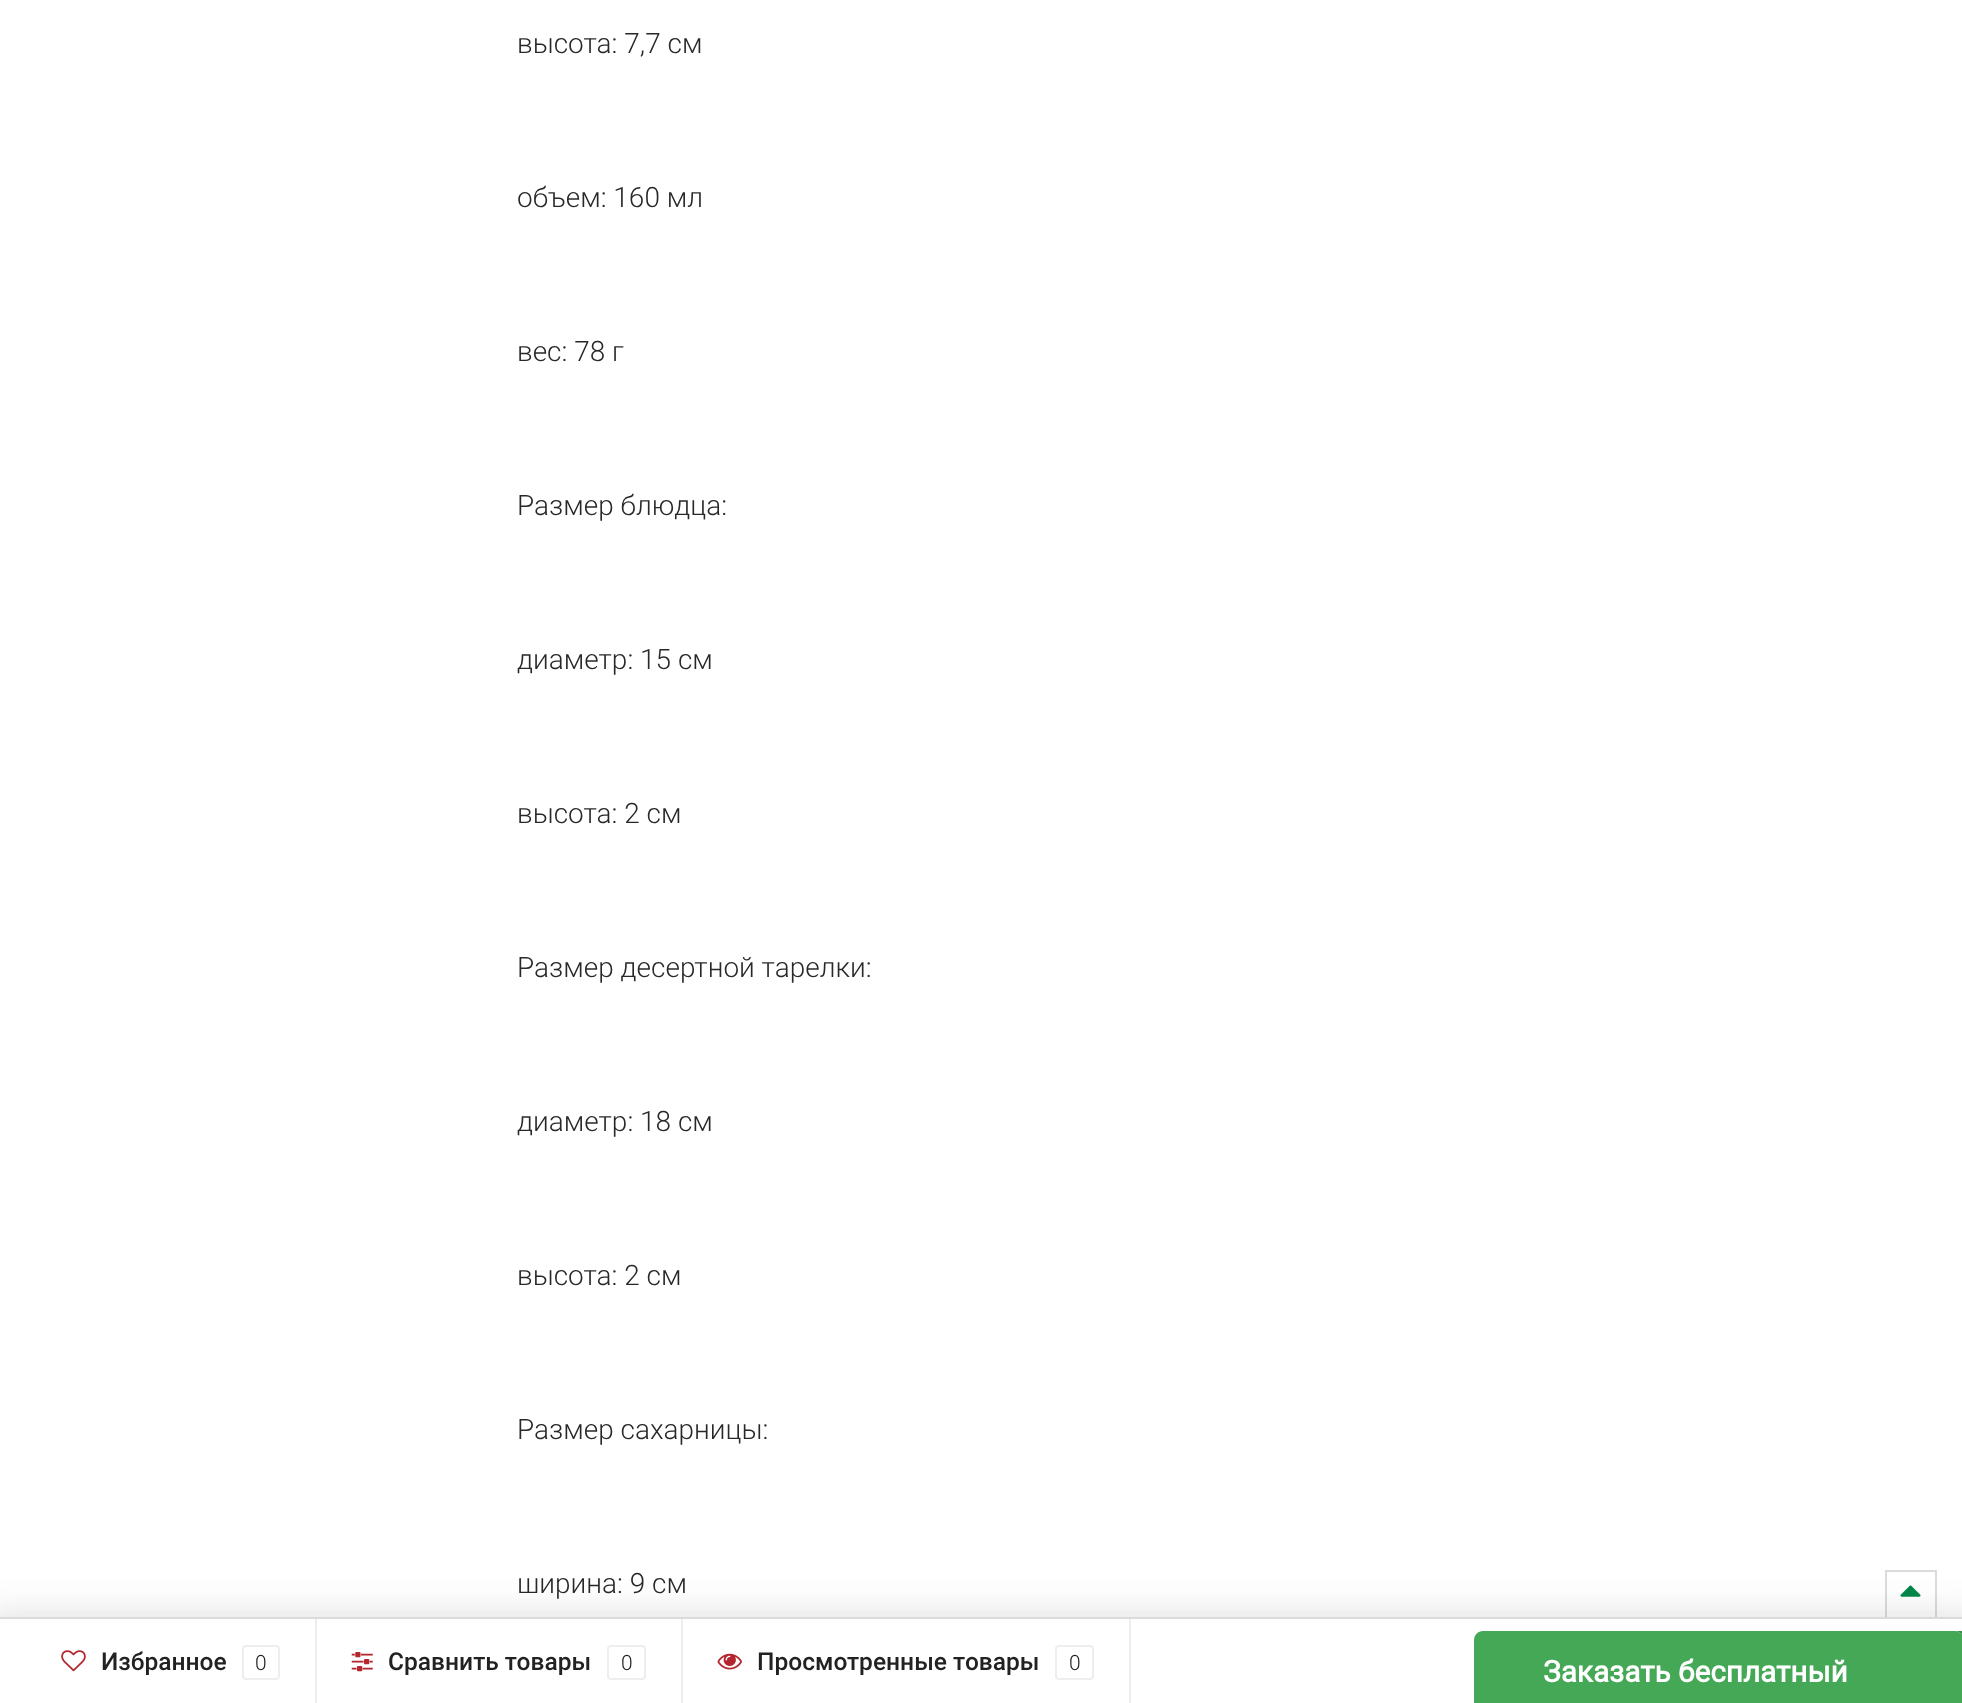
<svg xmlns="http://www.w3.org/2000/svg" width="1962" height="1703">
<rect width="100%" height="100%" fill="#fff"/>
<text x="517" y="53" style="font-family:Roboto;font-size:28px;font-weight:300;fill:#282828">высота: 7,7 см</text>
<text x="517" y="207" style="font-family:Roboto;font-size:28px;font-weight:300;fill:#282828">объем: 160 мл</text>
<text x="517" y="361" style="font-family:Roboto;font-size:28px;font-weight:300;fill:#282828">вес: 78 г</text>
<text x="517" y="515" style="font-family:Roboto;font-size:28px;font-weight:300;fill:#282828">Размер блюдца:</text>
<text x="517" y="669" style="font-family:Roboto;font-size:28px;font-weight:300;fill:#282828">диаметр: 15 см</text>
<text x="517" y="823" style="font-family:Roboto;font-size:28px;font-weight:300;fill:#282828">высота: 2 см</text>
<text x="517" y="977" style="font-family:Roboto;font-size:28px;font-weight:300;fill:#282828">Размер десертной тарелки:</text>
<text x="517" y="1131" style="font-family:Roboto;font-size:28px;font-weight:300;fill:#282828">диаметр: 18 см</text>
<text x="517" y="1285" style="font-family:Roboto;font-size:28px;font-weight:300;fill:#282828">высота: 2 см</text>
<text x="517" y="1439" style="font-family:Roboto;font-size:28px;font-weight:300;fill:#282828">Размер сахарницы:</text>
<text x="517" y="1593" style="font-family:Roboto;font-size:28px;font-weight:300;fill:#282828">ширина: 9 см</text>
<rect x="1886" y="1571" width="50" height="47" fill="none" stroke="#dbdbdb" stroke-width="2"/>
<image x="1900" y="1585" width="21" height="12" href="media/1.png"/>
<rect x="-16" y="1614" width="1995" height="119" fill="#32323226" filter="blur(17.5px)"/>
<rect y="1619" width="1962" height="84" fill="#fff"/>
<rect y="1617" width="1962" height="2" fill="#dbdbdb"/>
<rect x="315" y="1619" width="2" height="84" fill="#ededed"/>
<image x="61" y="1650" width="25" height="22" href="media/2.png"/>
<text x="101" y="1670" style="font-family:Roboto;font-size:24.5px;font-weight:500;fill:#222">Избранное</text>
<rect x="243" y="1646" width="36" height="33" rx="3" fill="none" stroke="#eee" stroke-width="2"/>
<text x="255" y="1670" style="font-family:Roboto;font-size:21px;font-weight:300;fill:#222">0</text>
<rect x="681" y="1619" width="2" height="84" fill="#ededed"/>
<image x="351" y="1652" width="22" height="20" href="media/3.png"/>
<text x="388" y="1670" style="font-family:Roboto;font-size:24.5px;font-weight:500;fill:#222">Сравнить товары</text>
<rect x="608" y="1646" width="37" height="33" rx="3" fill="none" stroke="#eee" stroke-width="2"/>
<text x="621" y="1670" style="font-family:Roboto;font-size:21px;font-weight:300;fill:#222">0</text>
<rect x="1129" y="1619" width="2" height="84" fill="#ededed"/>
<image x="717" y="1653" width="25" height="17" href="media/4.png"/>
<text x="757" y="1670" style="font-family:Roboto;font-size:24.5px;font-weight:500;fill:#222">Просмотренные товары</text>
<rect x="1056" y="1646" width="37" height="33" rx="3" fill="none" stroke="#eee" stroke-width="2"/>
<text x="1069" y="1670" style="font-family:Roboto;font-size:21px;font-weight:300;fill:#222">0</text>
<path d="M1474 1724v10h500v-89c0-8-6-14-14-14h-5c5 0 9 4 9 9v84z" fill="#398047"/>
<path d="M1483 1631h472c5 0 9 4 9 9v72h-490v-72c0-5 4-9 9-9z" fill="#44a857"/>
<text x="1543" y="1682" style="font-family:Roboto;font-size:29.75px;font-weight:bold;fill:#fff">Заказать бесплатный</text>
</svg>
